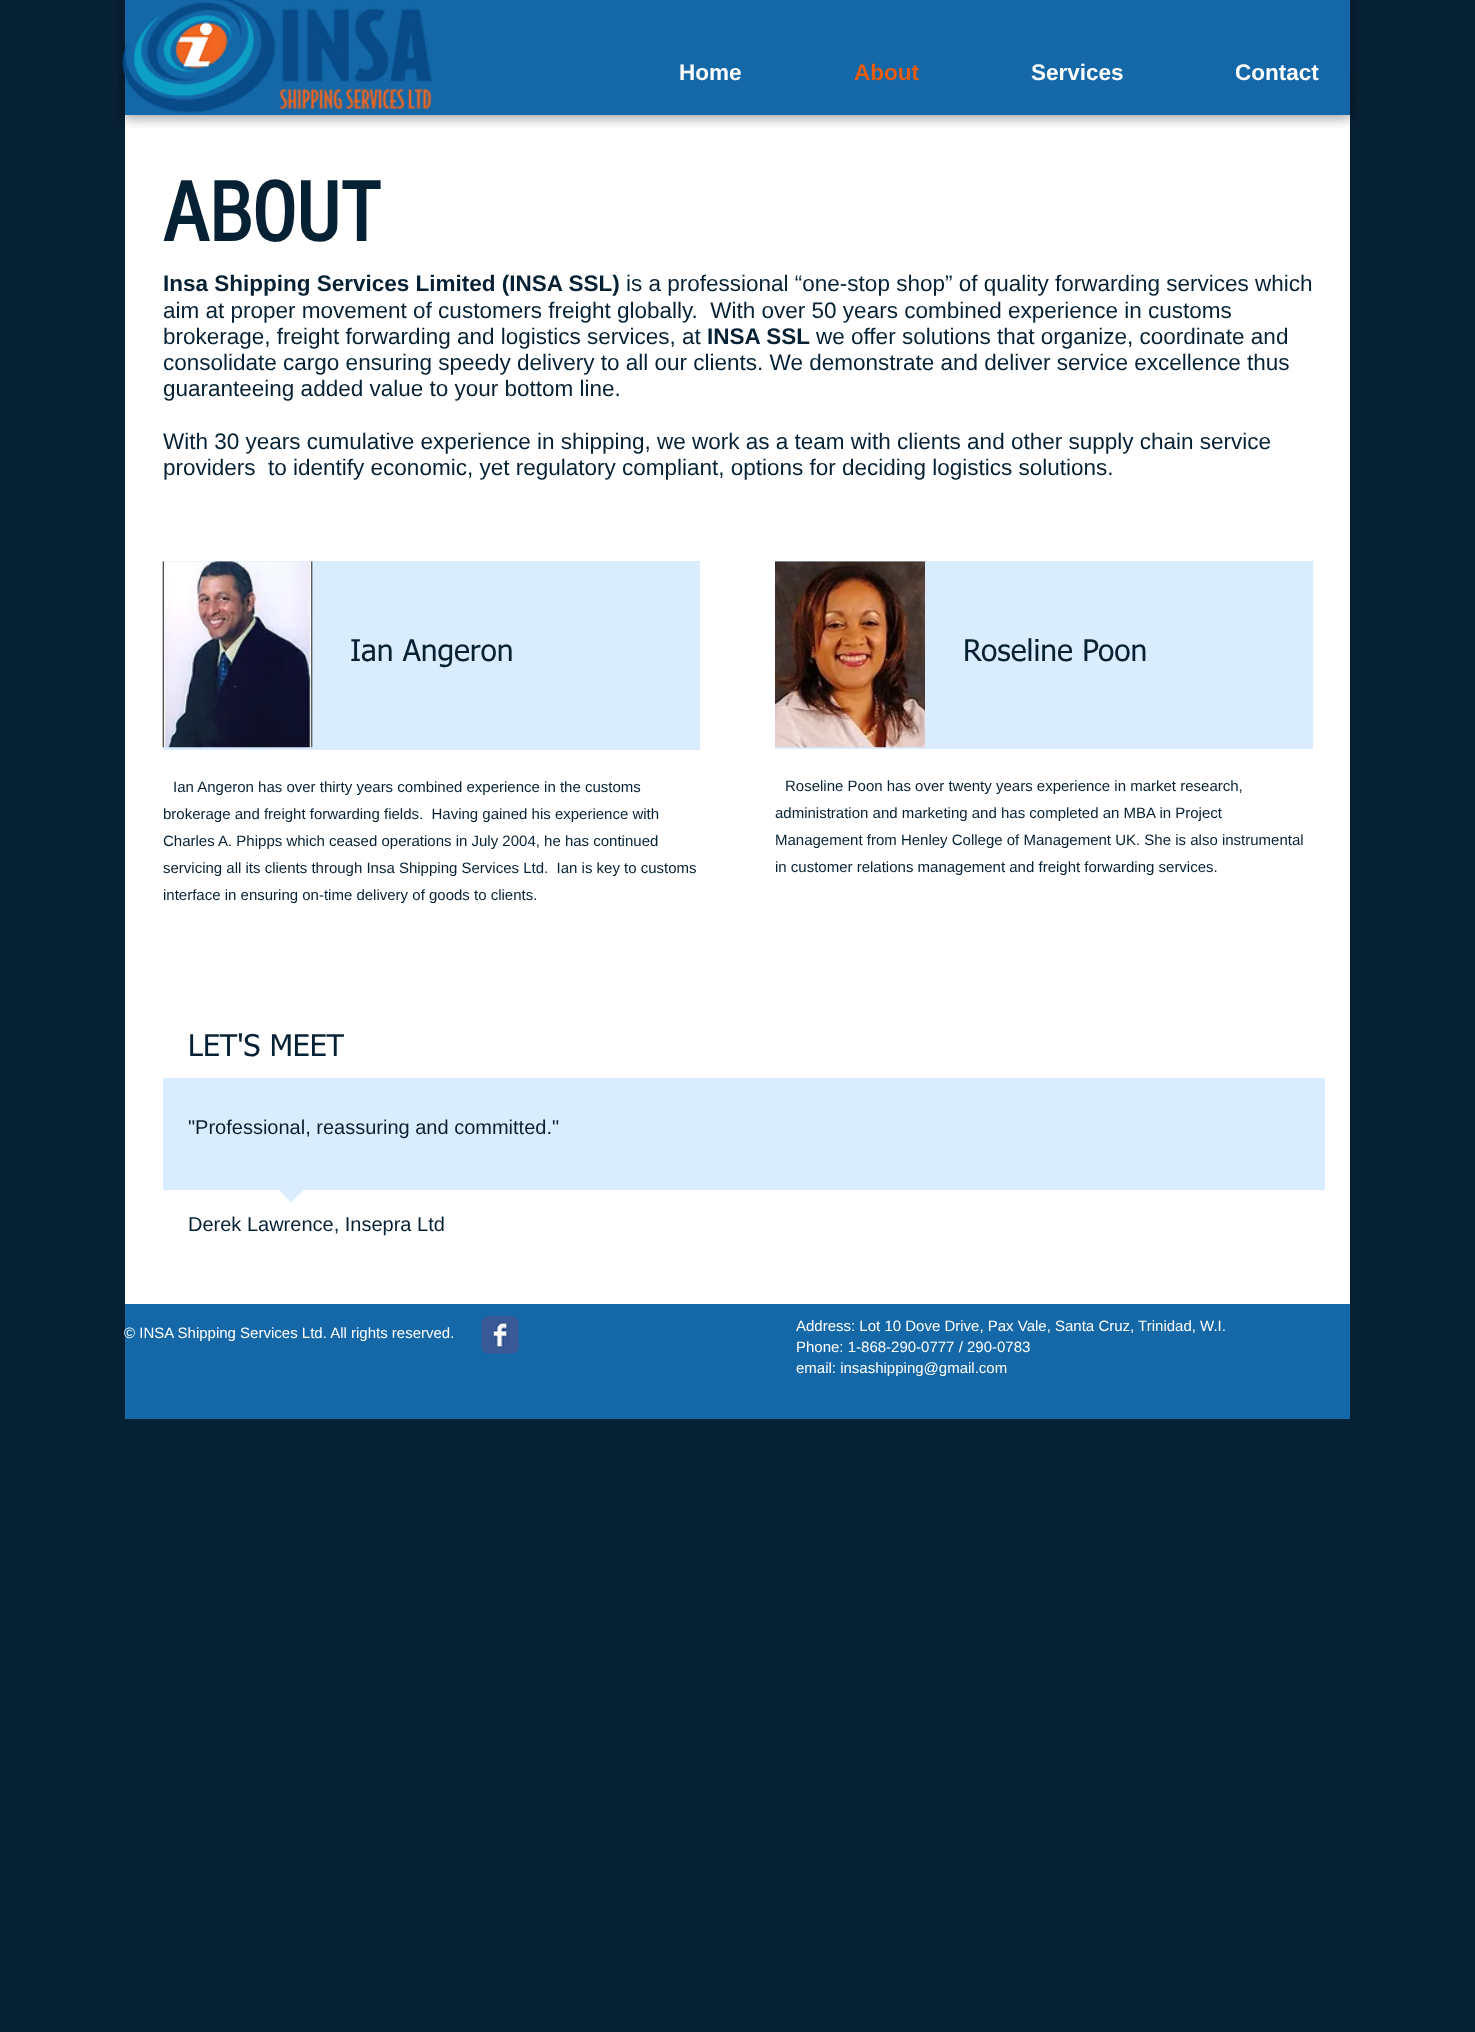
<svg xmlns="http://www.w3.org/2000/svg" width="1475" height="2032">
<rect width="100%" height="100%" fill="#062134"/>
<rect x="125" y="115" width="1225" height="1189" fill="#fff"/>
<image x="117" y="0" width="52" height="128" href="media/1.png"/>
<image x="168" y="115" width="1139" height="13" href="media/2.png"/>
<image x="1306" y="0" width="52" height="128" href="media/3.png"/>
<rect x="125" width="1225" height="115" fill="#1468a8"/>
<image x="122" y="0" width="310" height="113" href="media/4.png"/>
<text x="679" y="80" style="font-family:Liberation Sans;font-size:22.5px;font-weight:bold;fill:#fff">Home</text>
<text x="854" y="80" style="font-family:Liberation Sans;font-size:22.5px;font-weight:bold;fill:#e95c0c">About</text>
<text x="1031" y="80" style="font-family:Liberation Sans;font-size:22.5px;font-weight:bold;fill:#fff">Services</text>
<text x="1235" y="80" style="font-family:Liberation Sans;font-size:22.5px;font-weight:bold;fill:#fff">Contact</text>
<text x="163" y="241" style="font-family:'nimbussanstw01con';font-size:87.5px;font-weight:bold;fill:#062134">ABOUT</text>
<text x="163" y="291" style="font-family:Liberation Sans;font-size:22.5px;font-weight:bold;fill:#062134">Insa Shipping Services Limited (INSA SSL)</text>
<text x="626" y="291" style="font-family:Liberation Sans;font-size:22.5px;fill:#062134">is a professional “one-stop shop” of quality forwarding services which</text>
<text x="163" y="318" style="font-family:Liberation Sans;font-size:22.5px;fill:#062134" xml:space="preserve">aim at proper movement of customers freight globally.  With over 50 years combined experience in customs</text>
<text x="163" y="344" style="font-family:Liberation Sans;font-size:22.5px;fill:#062134">brokerage, freight forwarding and logistics services, at</text>
<text x="707" y="344" style="font-family:Liberation Sans;font-size:22.5px;font-weight:bold;fill:#062134">INSA SSL</text>
<text x="816" y="344" style="font-family:Liberation Sans;font-size:22.5px;fill:#062134">we offer solutions that organize, coordinate and</text>
<text x="163" y="370" style="font-family:Liberation Sans;font-size:22.5px;fill:#062134">consolidate cargo ensuring speedy delivery to all our clients. We demonstrate and deliver service excellence thus</text>
<text x="163" y="396" style="font-family:Liberation Sans;font-size:22.5px;fill:#062134">guaranteeing added value to your bottom line.</text>
<text x="163" y="449" style="font-family:Liberation Sans;font-size:22.5px;fill:#062134">With 30 years cumulative experience in shipping, we work as a team with clients and other supply chain service</text>
<text x="163" y="475" style="font-family:Liberation Sans;font-size:22.5px;fill:#062134" xml:space="preserve">providers  to identify economic, yet regulatory compliant, options for deciding logistics solutions.</text>
<rect x="163" y="561" width="537" height="189" fill="#daedff"/>
<image x="162" y="561" width="151" height="187" href="media/5.png"/>
<text x="350" y="661" style="font-family:tahoma;font-size:30px;fill:#062134">Ian Angeron</text>
<rect x="775" y="561" width="538" height="188" fill="#daedff"/>
<image x="775" y="561" width="150" height="187" href="media/6.png"/>
<text x="963" y="661" style="font-family:tahoma;font-size:30px;fill:#062134">Roseline Poon</text>
<text x="173" y="792" style="font-family:Liberation Sans;font-size:15px;fill:#062134">Ian Angeron has over thirty years combined experience in the customs</text>
<text x="163" y="819" style="font-family:Liberation Sans;font-size:15px;fill:#062134" xml:space="preserve">brokerage and freight forwarding fields.  Having gained his experience with</text>
<text x="163" y="846" style="font-family:Liberation Sans;font-size:15px;fill:#062134">Charles A. Phipps which ceased operations in July 2004, he has continued</text>
<text x="163" y="873" style="font-family:Liberation Sans;font-size:15px;fill:#062134" xml:space="preserve">servicing all its clients through Insa Shipping Services Ltd.  Ian is key to customs</text>
<text x="163" y="900" style="font-family:Liberation Sans;font-size:15px;fill:#062134">interface in ensuring on-time delivery of goods to clients.</text>
<text x="785" y="791" style="font-family:Liberation Sans;font-size:15px;fill:#062134">Roseline Poon has over twenty years experience in market research,</text>
<text x="775" y="818" style="font-family:Liberation Sans;font-size:15px;fill:#062134">administration and marketing and has completed an MBA in Project</text>
<text x="775" y="845" style="font-family:Liberation Sans;font-size:15px;fill:#062134">Management from Henley College of Management UK. She is also instrumental</text>
<text x="775" y="872" style="font-family:Liberation Sans;font-size:15px;fill:#062134">in customer relations management and freight forwarding services.</text>
<text x="188" y="1056" style="font-family:tahoma;font-size:30px;fill:#062134">LET'S MEET</text>
<rect x="163" y="1078" width="1162" height="112" fill="#daedff"/>
<text x="188" y="1134" style="font-family:Liberation Sans;font-size:20px;fill:#062134">"Professional, reassuring and committed."</text>
<path d="M279 1190h25l-13 12.5z" fill="#daedff"/>
<text x="188" y="1231" style="font-family:Liberation Sans;font-size:20px;fill:#062134">Derek Lawrence, Insepra Ltd</text>
<rect x="125" y="1304" width="1225" height="115" fill="#1468a8"/>
<text x="124" y="1338" style="font-family:Liberation Sans;font-size:15px;fill:#fff">© INSA Shipping Services Ltd. All rights reserved.</text>
<image x="481" y="1316" width="38" height="38" href="media/7.png"/>
<text x="796" y="1331" style="font-family:Liberation Sans;font-size:15px;fill:#fff">Address: Lot 10 Dove Drive, Pax Vale, Santa Cruz, Trinidad, W.I.</text>
<text x="796" y="1352" style="font-family:Liberation Sans;font-size:15px;fill:#fff">Phone: 1-868-290-0777 / 290-0783</text>
<text x="796" y="1373" style="font-family:Liberation Sans;font-size:15px;fill:#fff">email: insashipping@gmail.com</text>
</svg>
